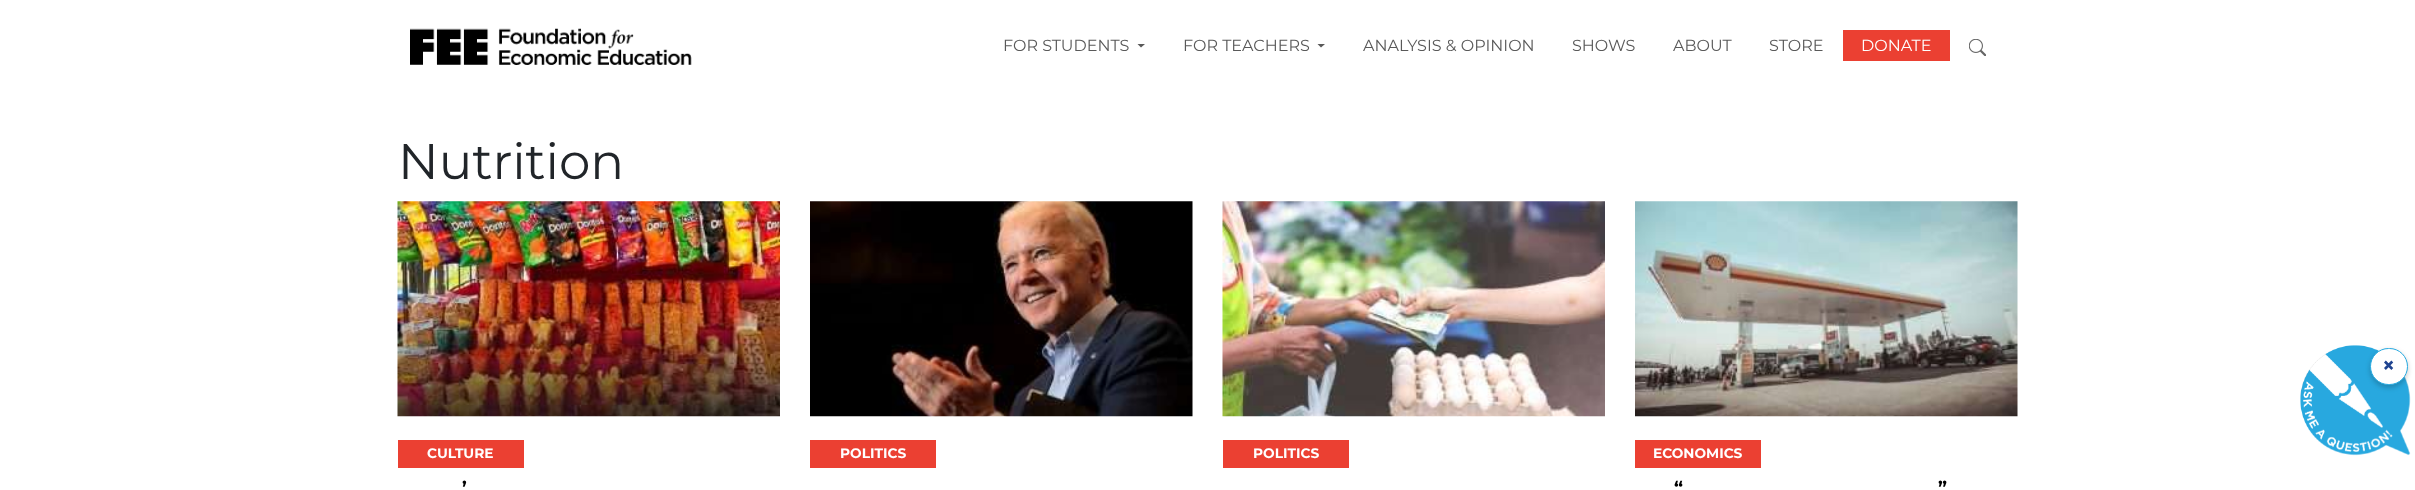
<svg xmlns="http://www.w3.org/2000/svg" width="2415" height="490">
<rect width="100%" height="100%" fill="#fff"/>
<image x="410" y="28" width="282" height="37" href="media/1.png"/>
<text x="1003" y="51" style="font-family:Montserrat;font-size:16px;fill:#595959">FOR STUDENTS</text>
<path d="M1137.5 44h7.5l-4 3.5z" fill="#595959"/>
<text x="1183" y="51" style="font-family:Montserrat;font-size:16px;fill:#595959">FOR TEACHERS</text>
<path d="M1317.5 44h7.5l-4 3.5z" fill="#595959"/>
<text x="1363" y="51" style="font-family:Montserrat;font-size:16px;fill:#595959">ANALYSIS &amp; OPINION</text>
<text x="1572" y="51" style="font-family:Montserrat;font-size:16px;fill:#595959">SHOWS</text>
<text x="1673" y="51" style="font-family:Montserrat;font-size:16px;fill:#595959">ABOUT</text>
<text x="1769" y="51" style="font-family:Montserrat;font-size:16px;fill:#595959">STORE</text>
<rect x="1843" y="30" width="107" height="31" fill="#eb4032"/>
<text x="1861" y="51" style="font-family:Montserrat;font-size:16px;fill:#fff">DONATE</text>
<image x="1969" y="39" width="17" height="17" href="media/2.png"/>
<text x="398" y="179" style="font-family:Montserrat;font-size:50px;fill:#212529">Nutrition</text>
<image x="397" y="201" width="383" height="216" href="media/3.png"/>
<rect x="398" y="440" width="126" height="28" fill="#eb4032"/>
<text x="427" y="458" style="font-family:Montserrat;font-size:13.75px;font-weight:bold;fill:#fff">CULTURE</text>
<text x="462" y="494" style="font-family:Montserrat;font-size:18px;font-weight:bold;fill:#000">’</text>
<image x="810" y="201" width="383" height="216" href="media/4.png"/>
<rect x="810" y="440" width="126" height="28" fill="#eb4032"/>
<text x="840" y="458" style="font-family:Montserrat;font-size:13.75px;font-weight:bold;fill:#fff">POLITICS</text>
<image x="1222" y="201" width="383" height="216" href="media/5.png"/>
<rect x="1223" y="440" width="126" height="28" fill="#eb4032"/>
<text x="1253" y="458" style="font-family:Montserrat;font-size:13.75px;font-weight:bold;fill:#fff">POLITICS</text>
<image x="1635" y="201" width="383" height="216" href="media/6.png"/>
<rect x="1635" y="440" width="126" height="28" fill="#eb4032"/>
<text x="1653" y="458" style="font-family:Montserrat;font-size:13.75px;font-weight:bold;fill:#fff">ECONOMICS</text>
<text x="1674" y="494" style="font-family:Montserrat;font-size:18px;font-weight:bold;fill:#000">“</text>
<text x="1938" y="494" style="font-family:Montserrat;font-size:18px;font-weight:bold;fill:#000">”</text>
<image x="2300" y="345" width="111" height="111" href="media/7.png"/>
<rect x="2370" y="350" width="38" height="38" rx="19" fill="#00000033" filter="blur(2.5px)"/>
<rect x="2370.5" y="348.5" width="37" height="36" rx="18" fill="#fff" stroke="#27aae1"/>
<text x="2382" y="373" style="font-family:Montserrat;font-size:22px;font-weight:bold;fill:#1f4390">×</text>
</svg>
